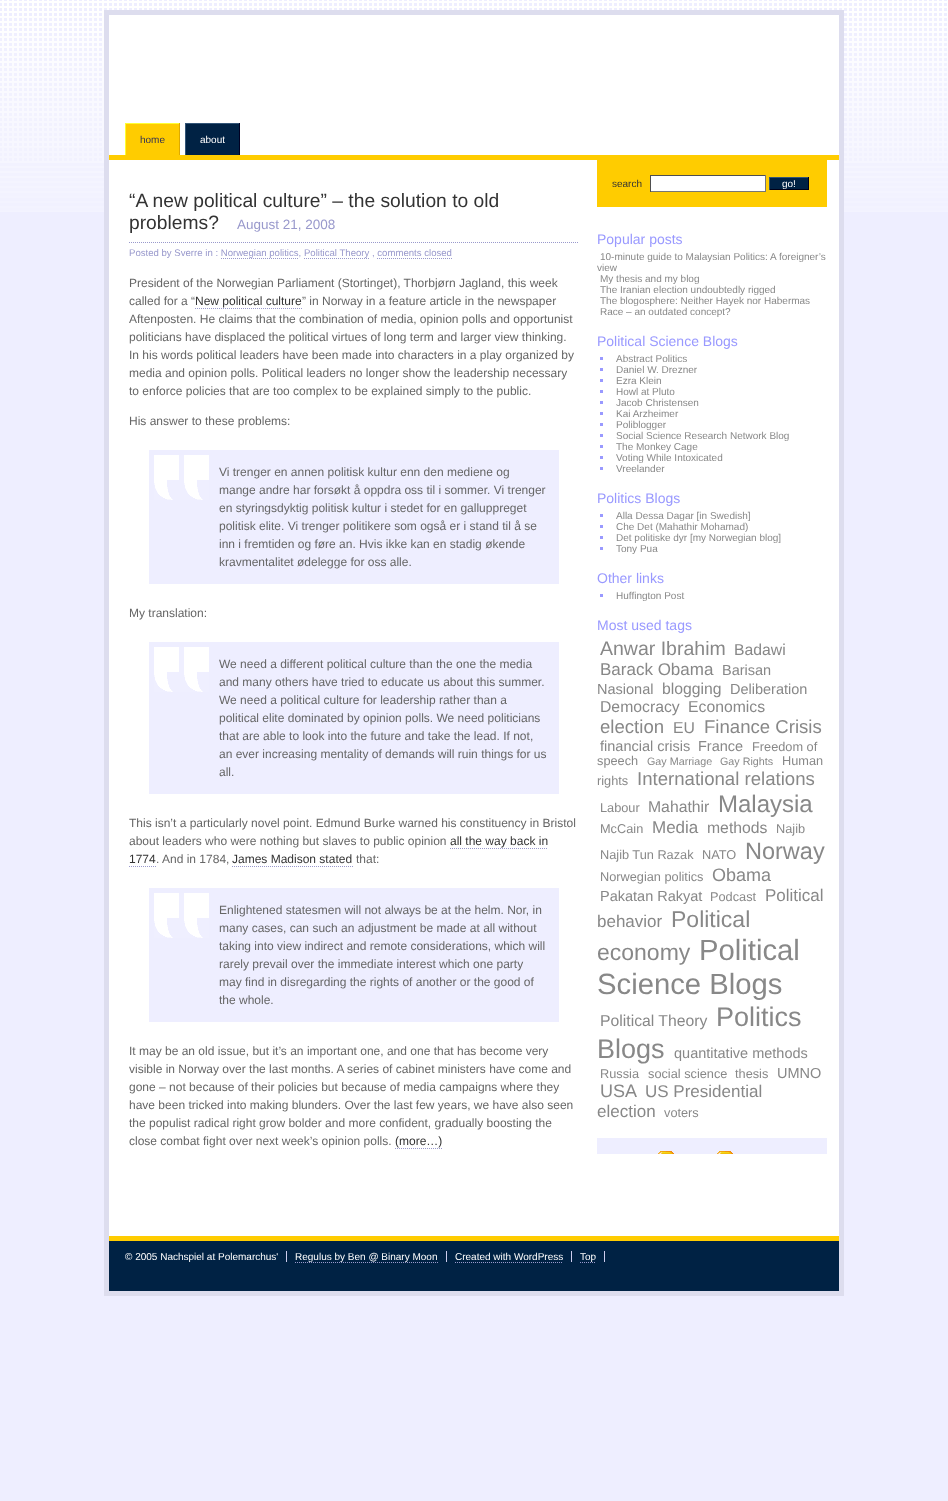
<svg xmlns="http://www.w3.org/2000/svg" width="948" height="1501">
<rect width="100%" height="100%" fill="#eef"/>
<image x="0" y="0" width="948" height="212" href="media/1.png"/>
<rect x="109" y="15" width="730" height="1221" fill="#fff"/>
<rect x="106.5" y="12.5" width="735" height="1281" fill="none" stroke="#dde" stroke-width="5"/>
<rect x="109" y="155" width="730" height="5" fill="#fc0"/>
<rect x="126" y="124" width="53" height="31" fill="#fc0"/>
<rect x="125" y="123" width="55" height="1" fill="#ff3"/>
<rect x="179" y="123" width="1" height="32" fill="#da0"/>
<rect x="125" y="123" width="1" height="32" fill="#ff3"/>
<text x="140" y="143" style="font-family:Liberation Sans;font-size:10px;fill:#335">home</text>
<rect x="186" y="124" width="53" height="31" fill="#024"/>
<rect x="185" y="123" width="55" height="1" fill="#357"/>
<rect x="239" y="123" width="1" height="32" fill="#002"/>
<rect x="185" y="123" width="1" height="32" fill="#357"/>
<text x="200" y="143" style="font-family:Liberation Sans;font-size:10px;fill:#fff">about</text>
<text x="129" y="207" style="font-family:Liberation Sans;font-size:19.25px;fill:#333">“A new political culture” – the solution to old</text>
<text x="129" y="229" style="font-family:Liberation Sans;font-size:19.25px;fill:#333">problems?</text>
<text x="237" y="229" style="font-family:Liberation Sans;font-size:13.5px;fill:#99c">August 21, 2008</text>
<path d="M129 242.5h450" fill="none" stroke="#99c" stroke-dasharray="1 1"/>
<text x="129" y="256" style="font-family:Liberation Sans;font-size:9.6px;fill:#99c">Posted by Sverre in : Norwegian politics, Political Theory , comments closed</text>
<path d="M221 258.5h78" fill="none" stroke="#99c" stroke-dasharray="1 1"/>
<path d="M304 258.5h65" fill="none" stroke="#99c" stroke-dasharray="1 1"/>
<path d="M377 258.5h75" fill="none" stroke="#99c" stroke-dasharray="1 1"/>
<text x="129" y="287" style="font-family:Liberation Sans;font-size:12px;fill:#666">President of the Norwegian Parliament (Stortinget), Thorbjørn Jagland, this week</text>
<text x="129" y="305" style="font-family:Liberation Sans;font-size:12px;fill:#666">called for a “</text>
<text x="195" y="305" style="font-family:Liberation Sans;font-size:12px;fill:#333">New political culture</text>
<path d="M195 308.5h107" fill="none" stroke="#99c" stroke-dasharray="1 1"/>
<text x="302" y="305" style="font-family:Liberation Sans;font-size:12px;fill:#666">” in Norway in a feature article in the newspaper</text>
<text x="129" y="323" style="font-family:Liberation Sans;font-size:12px;fill:#666">Aftenposten. He claims that the combination of media, opinion polls and opportunist</text>
<text x="129" y="341" style="font-family:Liberation Sans;font-size:12px;fill:#666">politicians have displaced the political virtues of long term and larger view thinking.</text>
<text x="129" y="359" style="font-family:Liberation Sans;font-size:12px;fill:#666">In his words political leaders have been made into characters in a play organized by</text>
<text x="129" y="377" style="font-family:Liberation Sans;font-size:12px;fill:#666">media and opinion polls. Political leaders no longer show the leadership necessary</text>
<text x="129" y="395" style="font-family:Liberation Sans;font-size:12px;fill:#666">to enforce policies that are too complex to be explained simply to the public.</text>
<text x="129" y="425" style="font-family:Liberation Sans;font-size:12px;fill:#666">His answer to these problems:</text>
<rect x="149" y="450" width="410" height="134" fill="#eef"/>
<image x="154" y="455" width="55" height="45" href="media/2.png"/>
<text x="219" y="476" style="font-family:Liberation Sans;font-size:12px;fill:#666">Vi trenger en annen politisk kultur enn den mediene og</text>
<text x="219" y="494" style="font-family:Liberation Sans;font-size:12px;fill:#666">mange andre har forsøkt å oppdra oss til i sommer. Vi trenger</text>
<text x="219" y="512" style="font-family:Liberation Sans;font-size:12px;fill:#666">en styringsdyktig politisk kultur i stedet for en galluppreget</text>
<text x="219" y="530" style="font-family:Liberation Sans;font-size:12px;fill:#666">politisk elite. Vi trenger politikere som også er i stand til å se</text>
<text x="219" y="548" style="font-family:Liberation Sans;font-size:12px;fill:#666">inn i fremtiden og føre an. Hvis ikke kan en stadig økende</text>
<text x="219" y="566" style="font-family:Liberation Sans;font-size:12px;fill:#666">kravmentalitet ødelegge for oss alle.</text>
<text x="129" y="617" style="font-family:Liberation Sans;font-size:12px;fill:#666">My translation:</text>
<rect x="149" y="642" width="410" height="152" fill="#eef"/>
<image x="154" y="647" width="55" height="45" href="media/2.png"/>
<text x="219" y="668" style="font-family:Liberation Sans;font-size:12px;fill:#666">We need a different political culture than the one the media</text>
<text x="219" y="686" style="font-family:Liberation Sans;font-size:12px;fill:#666">and many others have tried to educate us about this summer.</text>
<text x="219" y="704" style="font-family:Liberation Sans;font-size:12px;fill:#666">We need a political culture for leadership rather than a</text>
<text x="219" y="722" style="font-family:Liberation Sans;font-size:12px;fill:#666">political elite dominated by opinion polls. We need politicians</text>
<text x="219" y="740" style="font-family:Liberation Sans;font-size:12px;fill:#666">that are able to look into the future and take the lead. If not,</text>
<text x="219" y="758" style="font-family:Liberation Sans;font-size:12px;fill:#666">an ever increasing mentality of demands will ruin things for us</text>
<text x="219" y="776" style="font-family:Liberation Sans;font-size:12px;fill:#666">all.</text>
<text x="129" y="827" style="font-family:Liberation Sans;font-size:12px;fill:#666">This isn’t a particularly novel point. Edmund Burke warned his constituency in Bristol</text>
<text x="129" y="845" style="font-family:Liberation Sans;font-size:12px;fill:#666">about leaders who were nothing but slaves to public opinion</text>
<text x="450" y="845" style="font-family:Liberation Sans;font-size:12px;fill:#333">all the way back in</text>
<path d="M450 848.5h98" fill="none" stroke="#99c" stroke-dasharray="1 1"/>
<text x="129" y="863" style="font-family:Liberation Sans;font-size:12px;fill:#333">1774</text>
<path d="M129 866.5h27" fill="none" stroke="#99c" stroke-dasharray="1 1"/>
<text x="156" y="863" style="font-family:Liberation Sans;font-size:12px;fill:#666">. And in 1784,</text>
<text x="232" y="863" style="font-family:Liberation Sans;font-size:12px;fill:#333">James Madison stated</text>
<path d="M232 866.5h121" fill="none" stroke="#99c" stroke-dasharray="1 1"/>
<text x="356" y="863" style="font-family:Liberation Sans;font-size:12px;fill:#666">that:</text>
<rect x="149" y="888" width="410" height="134" fill="#eef"/>
<image x="154" y="893" width="55" height="45" href="media/2.png"/>
<text x="219" y="914" style="font-family:Liberation Sans;font-size:12px;fill:#666">Enlightened statesmen will not always be at the helm. Nor, in</text>
<text x="219" y="932" style="font-family:Liberation Sans;font-size:12px;fill:#666">many cases, can such an adjustment be made at all without</text>
<text x="219" y="950" style="font-family:Liberation Sans;font-size:12px;fill:#666">taking into view indirect and remote considerations, which will</text>
<text x="219" y="968" style="font-family:Liberation Sans;font-size:12px;fill:#666">rarely prevail over the immediate interest which one party</text>
<text x="219" y="986" style="font-family:Liberation Sans;font-size:12px;fill:#666">may find in disregarding the rights of another or the good of</text>
<text x="219" y="1004" style="font-family:Liberation Sans;font-size:12px;fill:#666">the whole.</text>
<text x="129" y="1055" style="font-family:Liberation Sans;font-size:12px;fill:#666">It may be an old issue, but it’s an important one, and one that has become very</text>
<text x="129" y="1073" style="font-family:Liberation Sans;font-size:12px;fill:#666">visible in Norway over the last months. A series of cabinet ministers have come and</text>
<text x="129" y="1091" style="font-family:Liberation Sans;font-size:12px;fill:#666">gone – not because of their policies but because of media campaigns where they</text>
<text x="129" y="1109" style="font-family:Liberation Sans;font-size:12px;fill:#666">have been tricked into making blunders. Over the last few years, we have also seen</text>
<text x="129" y="1127" style="font-family:Liberation Sans;font-size:12px;fill:#666">the populist radical right grow bolder and more confident, gradually boosting the</text>
<text x="129" y="1145" style="font-family:Liberation Sans;font-size:12px;fill:#666">close combat fight over next week’s opinion polls.</text>
<text x="395" y="1145" style="font-family:Liberation Sans;font-size:12px;fill:#333">(more…)</text>
<path d="M395 1148.5h47" fill="none" stroke="#99c" stroke-dasharray="1 1"/>
<rect x="597" y="160" width="230" height="47" fill="#fc0"/>
<text x="612" y="187" style="font-family:Liberation Sans;font-size:10px;fill:#333">search</text>
<rect x="651" y="176" width="114" height="15" fill="#fff"/>
<rect x="650" y="175" width="116" height="1" fill="#4f4f4f"/>
<rect x="765" y="175" width="1" height="17" fill="#767676"/>
<rect x="650" y="191" width="116" height="1" fill="#767676"/>
<rect x="650" y="175" width="1" height="17" fill="#4f4f4f"/>
<rect x="770" y="178" width="38" height="11" fill="#024"/>
<rect x="769" y="177" width="40" height="1" fill="#357"/>
<rect x="808" y="177" width="1" height="13" fill="#000017"/>
<rect x="769" y="189" width="40" height="1" fill="#000017"/>
<rect x="769" y="177" width="1" height="13" fill="#357"/>
<text x="782" y="187" style="font-family:Liberation Sans;font-size:10px;fill:#fff">go!</text>
<text x="597" y="244" style="font-family:Liberation Sans;font-size:14px;fill:#99f">Popular posts</text>
<text x="600" y="260" style="font-family:Liberation Sans;font-size:10px;fill:#888">10-minute guide to Malaysian Politics: A foreigner’s</text>
<text x="597" y="271" style="font-family:Liberation Sans;font-size:10px;fill:#888">view</text>
<text x="600" y="282" style="font-family:Liberation Sans;font-size:10px;fill:#888">My thesis and my blog</text>
<text x="600" y="293" style="font-family:Liberation Sans;font-size:10px;fill:#888">The Iranian election undoubtedly rigged</text>
<text x="600" y="304" style="font-family:Liberation Sans;font-size:10px;fill:#888">The blogosphere: Neither Hayek nor Habermas</text>
<text x="600" y="315" style="font-family:Liberation Sans;font-size:10px;fill:#888">Race – an outdated concept?</text>
<text x="597" y="346" style="font-family:Liberation Sans;font-size:14px;fill:#99f">Political Science Blogs</text>
<rect x="600" y="357" width="3" height="3" fill="#99f"/>
<text x="616" y="362" style="font-family:Liberation Sans;font-size:10px;fill:#888">Abstract Politics</text>
<rect x="600" y="368" width="3" height="3" fill="#99f"/>
<text x="616" y="373" style="font-family:Liberation Sans;font-size:10px;fill:#888">Daniel W. Drezner</text>
<rect x="600" y="379" width="3" height="3" fill="#99f"/>
<text x="616" y="384" style="font-family:Liberation Sans;font-size:10px;fill:#888">Ezra Klein</text>
<rect x="600" y="390" width="3" height="3" fill="#99f"/>
<text x="616" y="395" style="font-family:Liberation Sans;font-size:10px;fill:#888">Howl at Pluto</text>
<rect x="600" y="401" width="3" height="3" fill="#99f"/>
<text x="616" y="406" style="font-family:Liberation Sans;font-size:10px;fill:#888">Jacob Christensen</text>
<rect x="600" y="412" width="3" height="3" fill="#99f"/>
<text x="616" y="417" style="font-family:Liberation Sans;font-size:10px;fill:#888">Kai Arzheimer</text>
<rect x="600" y="423" width="3" height="3" fill="#99f"/>
<text x="616" y="428" style="font-family:Liberation Sans;font-size:10px;fill:#888">Poliblogger</text>
<rect x="600" y="434" width="3" height="3" fill="#99f"/>
<text x="616" y="439" style="font-family:Liberation Sans;font-size:10px;fill:#888">Social Science Research Network Blog</text>
<rect x="600" y="445" width="3" height="3" fill="#99f"/>
<text x="616" y="450" style="font-family:Liberation Sans;font-size:10px;fill:#888">The Monkey Cage</text>
<rect x="600" y="456" width="3" height="3" fill="#99f"/>
<text x="616" y="461" style="font-family:Liberation Sans;font-size:10px;fill:#888">Voting While Intoxicated</text>
<rect x="600" y="467" width="3" height="3" fill="#99f"/>
<text x="616" y="472" style="font-family:Liberation Sans;font-size:10px;fill:#888">Vreelander</text>
<text x="597" y="503" style="font-family:Liberation Sans;font-size:14px;fill:#99f">Politics Blogs</text>
<rect x="600" y="514" width="3" height="3" fill="#99f"/>
<text x="616" y="519" style="font-family:Liberation Sans;font-size:10px;fill:#888">Alla Dessa Dagar [in Swedish]</text>
<rect x="600" y="525" width="3" height="3" fill="#99f"/>
<text x="616" y="530" style="font-family:Liberation Sans;font-size:10px;fill:#888">Che Det (Mahathir Mohamad)</text>
<rect x="600" y="536" width="3" height="3" fill="#99f"/>
<text x="616" y="541" style="font-family:Liberation Sans;font-size:10px;fill:#888">Det politiske dyr [my Norwegian blog]</text>
<rect x="600" y="547" width="3" height="3" fill="#99f"/>
<text x="616" y="552" style="font-family:Liberation Sans;font-size:10px;fill:#888">Tony Pua</text>
<text x="597" y="583" style="font-family:Liberation Sans;font-size:14px;fill:#99f">Other links</text>
<rect x="600" y="594" width="3" height="3" fill="#99f"/>
<text x="616" y="599" style="font-family:Liberation Sans;font-size:10px;fill:#888">Huffington Post</text>
<text x="597" y="630" style="font-family:Liberation Sans;font-size:14px;fill:#99f">Most used tags</text>
<text x="600" y="655" style="font-family:Liberation Sans;font-size:19.5px;fill:#888">Anwar Ibrahim</text>
<text x="734" y="655" style="font-family:Liberation Sans;font-size:15.75px;fill:#888">Badawi</text>
<text x="600" y="675" style="font-family:Liberation Sans;font-size:17px;fill:#888">Barack Obama</text>
<text x="722" y="675" style="font-family:Liberation Sans;font-size:14.5px;fill:#888">Barisan</text>
<text x="597" y="694" style="font-family:Liberation Sans;font-size:14.5px;fill:#888">Nasional</text>
<text x="662" y="694" style="font-family:Liberation Sans;font-size:15.75px;fill:#888">blogging</text>
<text x="730" y="694" style="font-family:Liberation Sans;font-size:14.5px;fill:#888">Deliberation</text>
<text x="600" y="712" style="font-family:Liberation Sans;font-size:15.75px;fill:#888">Democracy</text>
<text x="688" y="712" style="font-family:Liberation Sans;font-size:15.75px;fill:#888">Economics</text>
<text x="600" y="733" style="font-family:Liberation Sans;font-size:18.6px;fill:#888">election</text>
<text x="673" y="733" style="font-family:Liberation Sans;font-size:15.75px;fill:#888">EU</text>
<text x="704" y="733" style="font-family:Liberation Sans;font-size:18.6px;fill:#888">Finance Crisis</text>
<text x="600" y="751" style="font-family:Liberation Sans;font-size:14.5px;fill:#888">financial crisis</text>
<text x="698" y="751" style="font-family:Liberation Sans;font-size:14.5px;fill:#888">France</text>
<text x="752" y="751" style="font-family:Liberation Sans;font-size:12.75px;fill:#888">Freedom of</text>
<text x="597" y="765" style="font-family:Liberation Sans;font-size:12.75px;fill:#888">speech</text>
<text x="647" y="765" style="font-family:Liberation Sans;font-size:10.75px;fill:#888">Gay Marriage</text>
<text x="720" y="765" style="font-family:Liberation Sans;font-size:10.75px;fill:#888">Gay Rights</text>
<text x="782" y="765" style="font-family:Liberation Sans;font-size:12.75px;fill:#888">Human</text>
<text x="597" y="785" style="font-family:Liberation Sans;font-size:12.75px;fill:#888">rights</text>
<text x="637" y="785" style="font-family:Liberation Sans;font-size:18.6px;fill:#888">International relations</text>
<text x="600" y="812" style="font-family:Liberation Sans;font-size:12.75px;fill:#888">Labour</text>
<text x="648" y="812" style="font-family:Liberation Sans;font-size:15.75px;fill:#888">Mahathir</text>
<text x="718" y="812" style="font-family:Liberation Sans;font-size:24px;fill:#888">Malaysia</text>
<text x="600" y="833" style="font-family:Liberation Sans;font-size:12.75px;fill:#888">McCain</text>
<text x="652" y="833" style="font-family:Liberation Sans;font-size:17px;fill:#888">Media</text>
<text x="707" y="833" style="font-family:Liberation Sans;font-size:15.75px;fill:#888">methods</text>
<text x="776" y="833" style="font-family:Liberation Sans;font-size:12.75px;fill:#888">Najib</text>
<text x="600" y="859" style="font-family:Liberation Sans;font-size:12.75px;fill:#888">Najib Tun Razak</text>
<text x="702" y="859" style="font-family:Liberation Sans;font-size:12.75px;fill:#888">NATO</text>
<text x="745" y="859" style="font-family:Liberation Sans;font-size:23.5px;fill:#888">Norway</text>
<text x="600" y="881" style="font-family:Liberation Sans;font-size:12.75px;fill:#888">Norwegian politics</text>
<text x="712" y="881" style="font-family:Liberation Sans;font-size:18px;fill:#888">Obama</text>
<text x="600" y="901" style="font-family:Liberation Sans;font-size:14.5px;fill:#888">Pakatan Rakyat</text>
<text x="710" y="901" style="font-family:Liberation Sans;font-size:12.75px;fill:#888">Podcast</text>
<text x="765" y="901" style="font-family:Liberation Sans;font-size:17px;fill:#888">Political</text>
<text x="597" y="927" style="font-family:Liberation Sans;font-size:17px;fill:#888">behavior</text>
<text x="671" y="927" style="font-family:Liberation Sans;font-size:23px;fill:#888">Political</text>
<text x="597" y="960" style="font-family:Liberation Sans;font-size:23px;fill:#888">economy</text>
<text x="699" y="960" style="font-family:Liberation Sans;font-size:29.25px;fill:#888">Political</text>
<text x="597" y="994" style="font-family:Liberation Sans;font-size:29.25px;fill:#888">Science Blogs</text>
<text x="600" y="1026" style="font-family:Liberation Sans;font-size:15.75px;fill:#888">Political Theory</text>
<text x="716" y="1026" style="font-family:Liberation Sans;font-size:27px;fill:#888">Politics</text>
<text x="597" y="1058" style="font-family:Liberation Sans;font-size:27px;fill:#888">Blogs</text>
<text x="674" y="1058" style="font-family:Liberation Sans;font-size:14.5px;fill:#888">quantitative methods</text>
<text x="600" y="1078" style="font-family:Liberation Sans;font-size:12.75px;fill:#888">Russia</text>
<text x="648" y="1078" style="font-family:Liberation Sans;font-size:12.75px;fill:#888">social science</text>
<text x="735" y="1078" style="font-family:Liberation Sans;font-size:12.75px;fill:#888">thesis</text>
<text x="777" y="1078" style="font-family:Liberation Sans;font-size:14.5px;fill:#888">UMNO</text>
<text x="600" y="1097" style="font-family:Liberation Sans;font-size:18px;fill:#888">USA</text>
<text x="645" y="1097" style="font-family:Liberation Sans;font-size:17px;fill:#888">US Presidential</text>
<text x="597" y="1117" style="font-family:Liberation Sans;font-size:17px;fill:#888">election</text>
<text x="664" y="1117" style="font-family:Liberation Sans;font-size:12.75px;fill:#888">voters</text>
<rect x="597" y="1138" width="230" height="16" fill="#eef"/>
<image x="658" y="1151" width="16" height="3" href="media/3.png"/>
<image x="717" y="1151" width="16" height="3" href="media/3.png"/>
<rect x="109" y="1241" width="730" height="50" fill="#024"/>
<rect x="109" y="1236" width="730" height="5" fill="#fc0"/>
<rect x="286" y="1251" width="1" height="11" fill="#cce"/>
<text x="125" y="1260" style="font-family:Liberation Sans;font-size:10px;fill:#fff">© 2005 Nachspiel at Polemarchus'</text>
<rect x="446" y="1251" width="1" height="11" fill="#cce"/>
<path d="M295 1262.5h143" fill="none" stroke="#99c" stroke-dasharray="1 1"/>
<text x="295" y="1260" style="font-family:Liberation Sans;font-size:10px;fill:#fff">Regulus by Ben @ Binary Moon</text>
<rect x="571" y="1251" width="1" height="11" fill="#cce"/>
<text x="455" y="1260" style="font-family:Liberation Sans;font-size:10px;fill:#fff">Created with WordPress</text>
<path d="M455 1262.5h108" fill="none" stroke="#99c" stroke-dasharray="1 1"/>
<rect x="604" y="1251" width="1" height="11" fill="#cce"/>
<path d="M580 1262.5h16" fill="none" stroke="#99c" stroke-dasharray="1 1"/>
<text x="580" y="1260" style="font-family:Liberation Sans;font-size:10px;fill:#fff">Top</text>
</svg>
